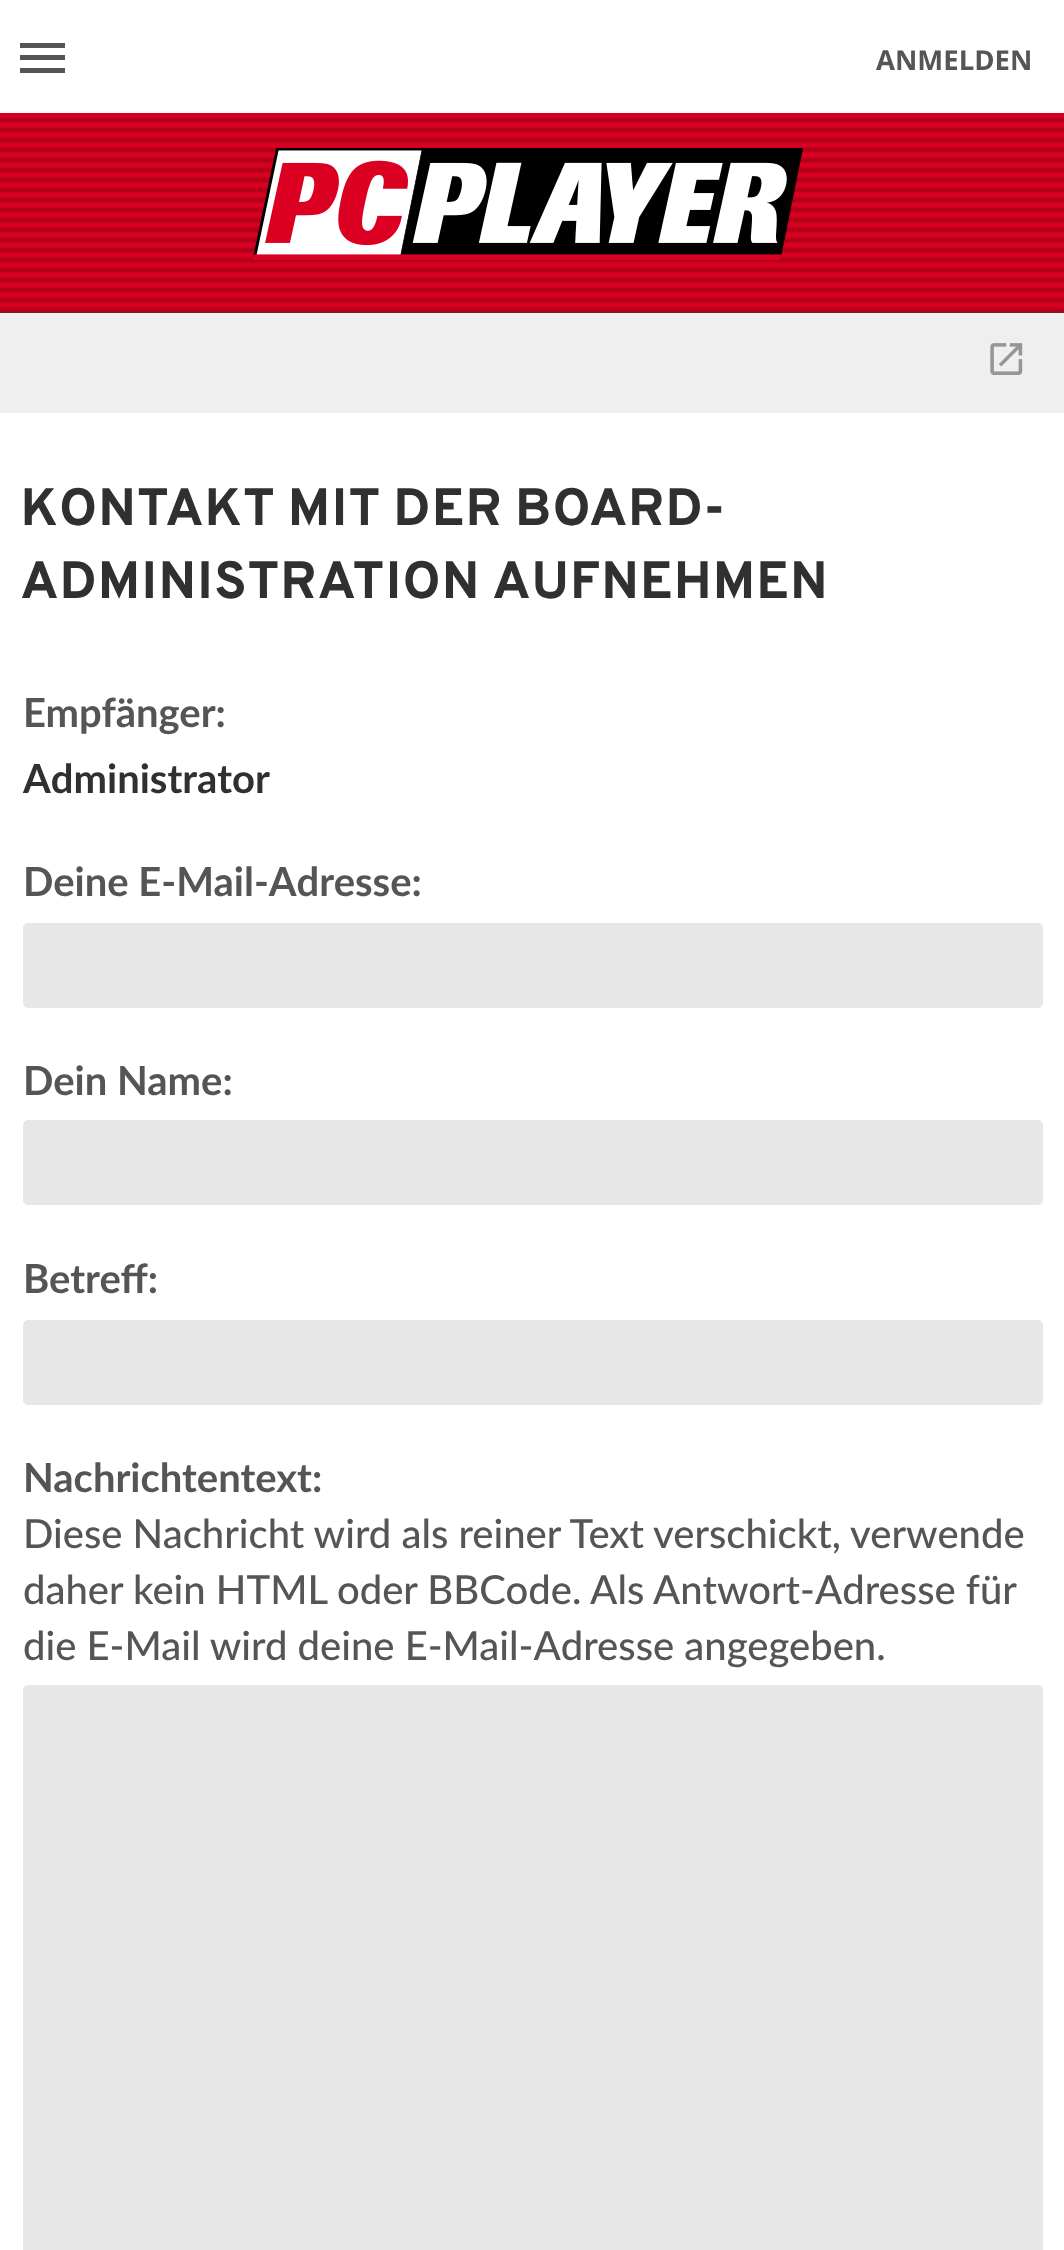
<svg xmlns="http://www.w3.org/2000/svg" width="1064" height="2250">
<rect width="100%" height="100%" fill="#fff"/>
<image x="0" y="312" width="1064" height="1" href="media/1.png"/>
<rect x="20" y="43" width="45" height="5" fill="#555"/>
<rect x="20" y="55" width="45" height="5" fill="#555"/>
<rect x="20" y="68" width="45" height="5" fill="#555"/>
<text x="876" y="70" style="font-family:Open Sans;font-size:27.5px;font-weight:bold;fill:#555">ANMELDEN</text>
<image x="0" y="113" width="1064" height="200" href="media/2.png"/>
<image x="253" y="148" width="550" height="112" href="media/3.png"/>
<rect y="313" width="1064" height="100" fill="#efefef"/>
<image x="990" y="343" width="33" height="32" href="media/4.png"/>
<text x="20" y="525" style="font-family:Overpass;font-size:52.5px;font-weight:bold;fill:#303030">KONTAKT MIT DER BOARD-</text>
<text x="20" y="598" style="font-family:Overpass;font-size:52.5px;font-weight:bold;fill:#303030">ADMINISTRATION AUFNEHMEN</text>
<text x="23" y="727" style="font-family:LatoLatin;font-size:40px;font-weight:bold;fill:#555">Empfänger:</text>
<text x="23" y="793" style="font-family:LatoLatin;font-size:40px;font-weight:bold;fill:#303030">Administrator</text>
<text x="23" y="896" style="font-family:LatoLatin;font-size:40px;font-weight:bold;fill:#555">Deine E-Mail-Adresse:</text>
<rect x="23" y="923" width="1020" height="85" rx="5" fill="#e7e7e7"/>
<text x="23" y="1095" style="font-family:LatoLatin;font-size:40px;font-weight:bold;fill:#555">Dein Name:</text>
<rect x="23" y="1120" width="1020" height="85" rx="5" fill="#e7e7e7"/>
<text x="23" y="1293" style="font-family:LatoLatin;font-size:40px;font-weight:bold;fill:#555">Betreff:</text>
<rect x="23" y="1320" width="1020" height="85" rx="5" fill="#e7e7e7"/>
<text x="23" y="1492" style="font-family:LatoLatin;font-size:40px;font-weight:bold;fill:#555">Nachrichtentext:</text>
<text x="23" y="1548" style="font-family:LatoLatin;font-size:40px;font-weight:500;fill:#555">Diese Nachricht wird als reiner Text verschickt, verwende</text>
<text x="23" y="1604" style="font-family:LatoLatin;font-size:40px;font-weight:500;fill:#555">daher kein HTML oder BBCode. Als Antwort-Adresse für</text>
<text x="23" y="1660" style="font-family:LatoLatin;font-size:40px;font-weight:500;fill:#555">die E-Mail wird deine E-Mail-Adresse angegeben.</text>
<rect x="23" y="1685" width="1020" height="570" rx="5" fill="#e7e7e7"/>
</svg>
